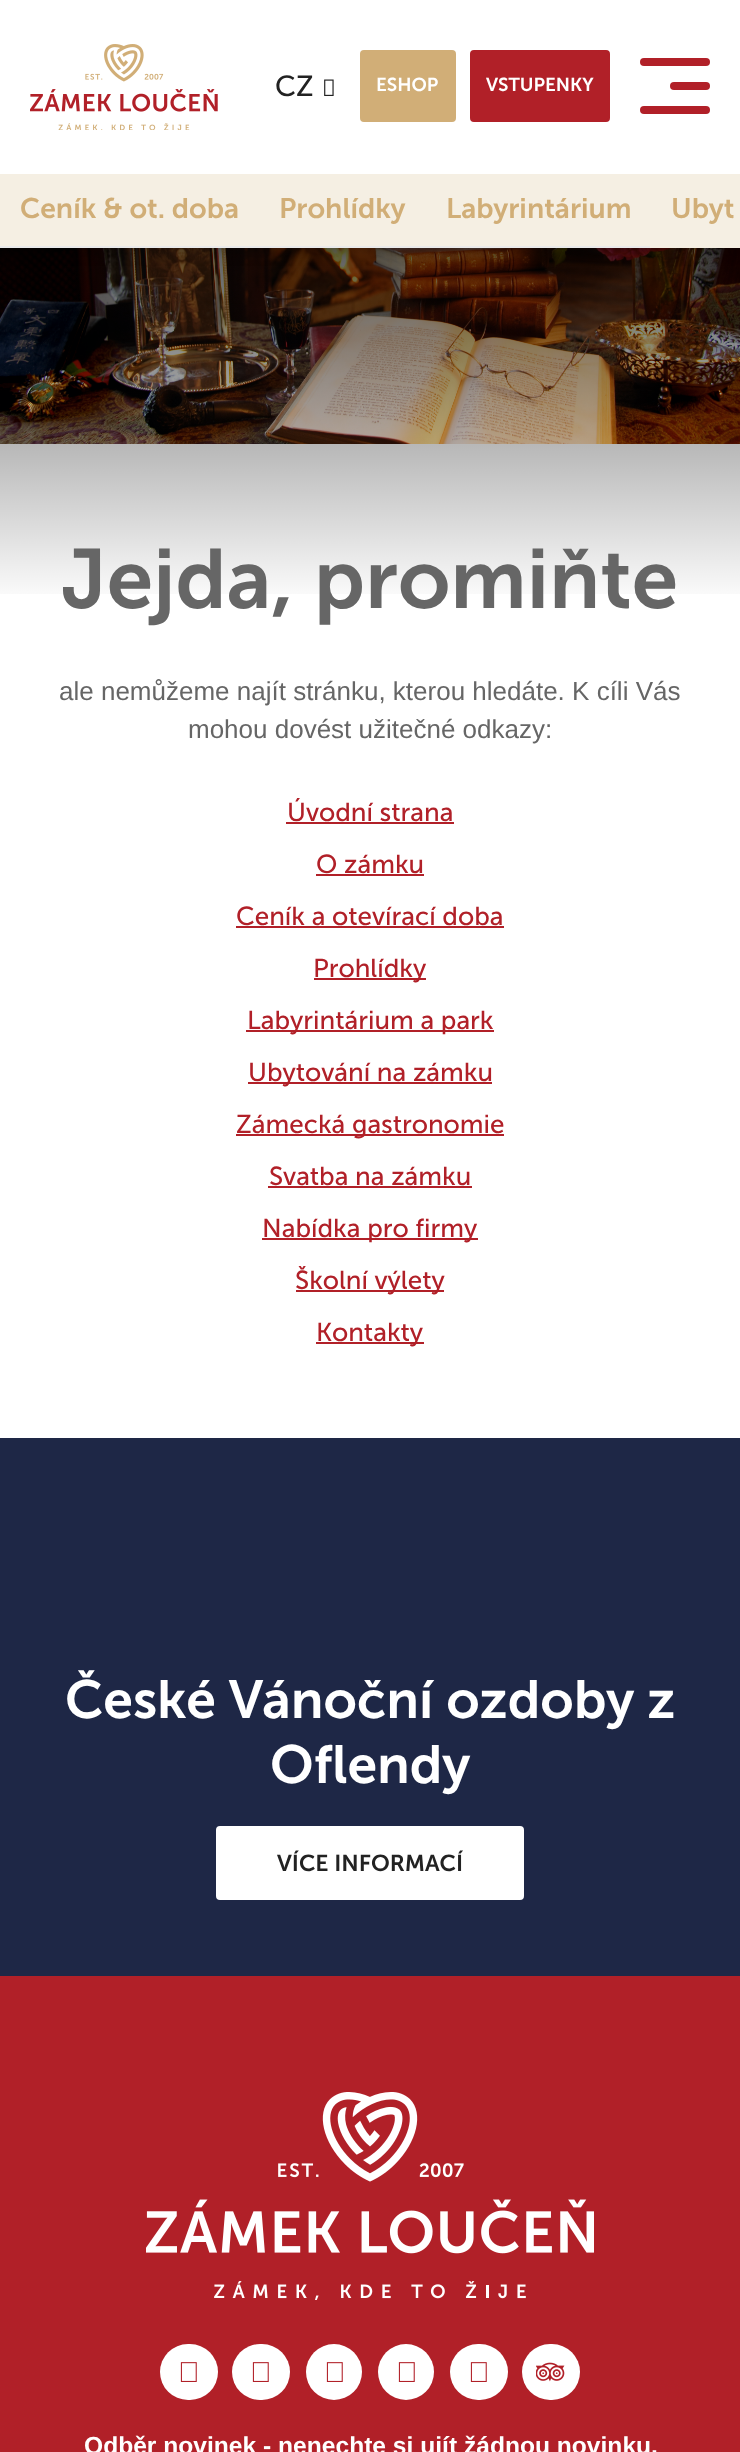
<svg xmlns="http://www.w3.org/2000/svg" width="740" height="2452">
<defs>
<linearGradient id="g1" gradientUnits="userSpaceOnUse" x1="370" y1="174" x2="370" y2="606"><stop offset="0" stop-color="#000" stop-opacity="0.75"/><stop offset="1" stop-color="#000" stop-opacity="0"/></linearGradient>
</defs>
<rect width="100%" height="100%" fill="#fff"/>
<image x="0" y="248" width="740" height="196" href="media/3.png"/>
<rect y="248" width="740" height="346" fill="url(#g1)"/>
<rect y="6" width="740" height="248" fill="#00000029" filter="blur(6px)"/>
<rect width="740" height="174" fill="#fff"/>
<image x="30" y="44" width="188" height="86" href="media/1.png"/>
<text x="275" y="96" style="font-family:Museo Sans;font-size:29px;fill:#222">CZ</text>
<image x="324" y="79" width="10" height="17" href="media/2.png"/>
<rect x="361" y="51" width="94" height="70" rx="3" fill="#d1ae77" stroke="#d1ae77" stroke-width="2"/>
<text x="376" y="91" style="font-family:Museo Sans;font-size:18.75px;font-weight:600;fill:#fff">ESHOP</text>
<rect x="471" y="51" width="138" height="70" rx="3" fill="#b12028" stroke="#b12028" stroke-width="2"/>
<text x="486" y="91" style="font-family:Museo Sans;font-size:18.75px;font-weight:600;fill:#fff">VSTUPENKY</text>
<rect x="640" y="58" width="70" height="8" rx="4" fill="#b12028"/>
<rect x="670" y="82" width="40" height="8" rx="4" fill="#b12028"/>
<rect x="640" y="106" width="70" height="8" rx="4" fill="#b12028"/>
<rect y="174" width="740" height="74" fill="#f5efe3"/>
<rect y="246" width="650" height="2" fill="#eaeaea"/>
<text x="20" y="218" style="font-family:Museo Sans;font-size:28.25px;font-weight:600;fill:#d1ae77">Ceník &amp; ot. doba</text>
<text x="279" y="218" style="font-family:Museo Sans;font-size:28.25px;font-weight:600;fill:#d1ae77">Prohlídky</text>
<text x="446" y="218" style="font-family:Museo Sans;font-size:28.25px;font-weight:600;fill:#d1ae77">Labyrintárium</text>
<text x="671" y="218" style="font-family:Museo Sans;font-size:28.25px;font-weight:600;fill:#d1ae77">Ubyt</text>
<text x="61" y="608" style="font-family:Museo Sans;font-size:83.75px;font-weight:600;fill:#666">Jejda, promiňte</text>
<text x="59" y="700" style="font-family:Liberation Sans;font-size:26px;fill:#666">ale nemůžeme najít stránku, kterou hledáte. K cíli Vás</text>
<text x="188" y="738" style="font-family:Liberation Sans;font-size:26px;fill:#666">mohou dovést užitečné odkazy:</text>
<text x="287" y="821" style="font-family:Museo Sans;font-size:26px;fill:#b12028">Úvodní strana</text>
<rect x="286" y="822" width="168" height="2" fill="#b12028"/>
<text x="316" y="873" style="font-family:Museo Sans;font-size:26px;fill:#b12028">O zámku</text>
<rect x="316" y="874" width="108" height="2" fill="#b12028"/>
<text x="236" y="925" style="font-family:Museo Sans;font-size:26px;fill:#b12028">Ceník a otevírací doba</text>
<rect x="236" y="926" width="268" height="2" fill="#b12028"/>
<rect x="314" y="978" width="112" height="2" fill="#b12028"/>
<text x="313" y="977" style="font-family:Museo Sans;font-size:26px;fill:#b12028">Prohlídky</text>
<rect x="246" y="1030" width="248" height="2" fill="#b12028"/>
<text x="247" y="1029" style="font-family:Museo Sans;font-size:26px;fill:#b12028">Labyrintárium a park</text>
<rect x="248" y="1082" width="244" height="2" fill="#b12028"/>
<text x="248" y="1081" style="font-family:Museo Sans;font-size:26px;fill:#b12028">Ubytování na zámku</text>
<rect x="236" y="1134" width="268" height="2" fill="#b12028"/>
<text x="236" y="1133" style="font-family:Museo Sans;font-size:26px;fill:#b12028">Zámecká gastronomie</text>
<text x="269" y="1185" style="font-family:Museo Sans;font-size:26px;fill:#b12028">Svatba na zámku</text>
<rect x="268" y="1186" width="204" height="2" fill="#b12028"/>
<rect x="262" y="1238" width="216" height="2" fill="#b12028"/>
<text x="262" y="1237" style="font-family:Museo Sans;font-size:26px;fill:#b12028">Nabídka pro firmy</text>
<rect x="296" y="1290" width="148" height="2" fill="#b12028"/>
<text x="295" y="1289" style="font-family:Museo Sans;font-size:26px;fill:#b12028">Školní výlety</text>
<rect x="316" y="1342" width="108" height="2" fill="#b12028"/>
<text x="316" y="1341" style="font-family:Museo Sans;font-size:26px;fill:#b12028">Kontakty</text>
<rect y="1438" width="740" height="538" fill="#1e2746"/>
<text x="65" y="1718" style="font-family:Museo Sans;font-size:53.5px;font-weight:600;fill:#fff">České Vánoční ozdoby z</text>
<text x="270" y="1783" style="font-family:Museo Sans;font-size:53.5px;font-weight:600;fill:#fff">Oflendy</text>
<rect x="217" y="1827" width="306" height="72" rx="3" fill="#fff" stroke="#fff" stroke-width="2"/>
<text x="277" y="1871" style="font-family:Museo Sans;font-size:23px;font-weight:600;fill:#222">VÍCE INFORMACÍ</text>
<rect y="1976" width="740" height="476" fill="#b12028"/>
<image x="146" y="2092" width="448" height="208" href="media/4.png"/>
<rect x="160" y="2344" width="58" height="56" rx="28" fill="#fff"/>
<image x="180" y="2362" width="17" height="20" href="media/5.png"/>
<rect x="232" y="2344" width="58" height="56" rx="28" fill="#fff"/>
<image x="252" y="2362" width="17" height="20" href="media/5.png"/>
<circle cx="334" cy="2372" r="28" fill="#fff"/>
<image x="326" y="2362" width="17" height="20" href="media/5.png"/>
<circle cx="406" cy="2372" r="28" fill="#fff"/>
<image x="398" y="2362" width="17" height="20" href="media/5.png"/>
<rect x="450" y="2344" width="58" height="56" rx="28" fill="#fff"/>
<image x="470" y="2362" width="17" height="20" href="media/5.png"/>
<rect x="522" y="2344" width="58" height="56" rx="28" fill="#fff"/>
<image x="536" y="2362" width="29" height="20" href="media/6.png"/>
<text x="84" y="2454" style="font-family:Liberation Sans;font-size:24.6px;font-weight:bold;fill:#fff">Odběr novinek - nenechte si ujít žádnou novinku,</text>
</svg>
